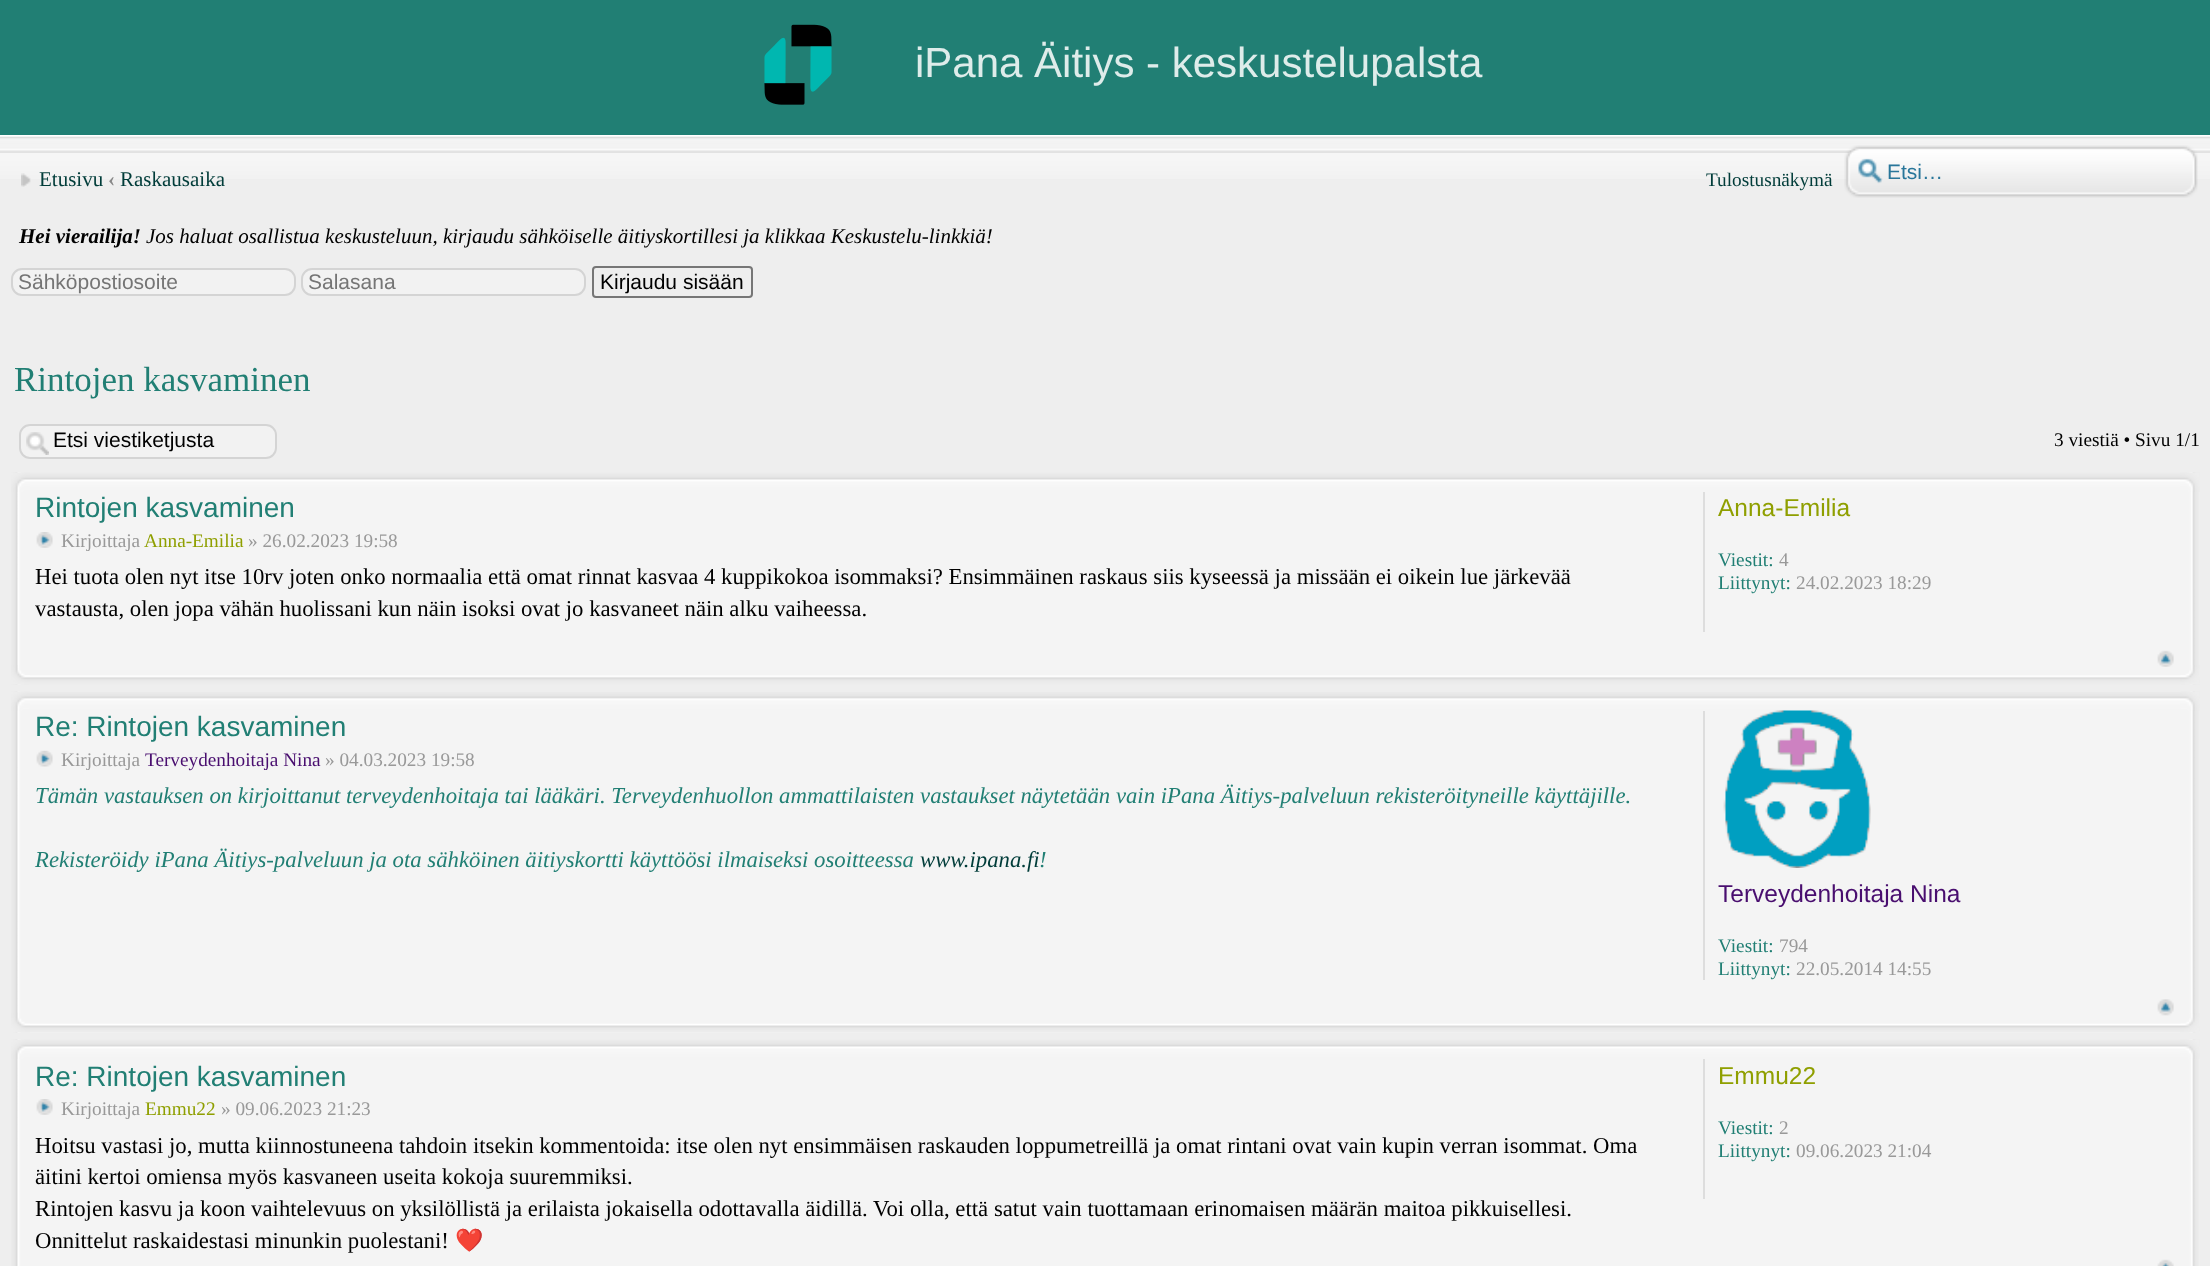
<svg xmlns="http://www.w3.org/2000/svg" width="2210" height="1266">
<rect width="100%" height="100%" fill="#eee"/>
<rect width="2210" height="135" fill="#217f74"/>
<rect y="135" width="2210" height="2" fill="#fff"/>
<image x="764" y="24" width="68" height="81" href="media/1.png"/>
<text x="915" y="77" style="font-family:Liberation Sans;font-size:42px;fill:#deecea">iPana Äitiys - keskustelupalsta</text>
<image x="0" y="136" width="2210" height="15" href="media/2.png"/>
<image x="0" y="150" width="2210" height="29" href="media/4.png"/>
<rect y="152" width="2210" height="1" fill="#e2e2e2"/>
<image x="1844" y="145" width="354" height="53" href="media/3.png"/>
<text x="1887" y="179" style="font-family:Liberation Sans;font-size:21px;fill:#28769a">Etsi…</text>
<image x="21" y="173" width="10" height="14" href="media/5.png"/>
<text x="39" y="186" style="font-family:Liberation Serif;font-size:21px;fill:#003c39">Etusivu</text>
<text x="108" y="186" style="font-family:Liberation Serif;font-size:21px;font-weight:bold;fill:#888">‹</text>
<text x="120" y="186" style="font-family:Liberation Serif;font-size:21px;fill:#003c39">Raskausaika</text>
<text x="1706" y="186" style="font-family:Liberation Serif;font-size:19.25px;fill:#003c39">Tulostusnäkymä</text>
<text x="19" y="243" style="font-family:Liberation Serif;font-size:21px;font-weight:bold;font-style:italic;fill:#000">Hei vierailija!</text>
<text x="146" y="243" style="font-family:Liberation Serif;font-size:21px;font-style:italic;fill:#000">Jos haluat osallistua keskusteluun, kirjaudu sähköiselle äitiyskortillesi ja klikkaa Keskustelu-linkkiä!</text>
<rect x="12" y="269" width="283" height="26" rx="10" fill="#f2f2f2" stroke="#d4d4d4" stroke-width="2"/>
<text x="18" y="289" style="font-family:Liberation Sans;font-size:21px;fill:#757575">Sähköpostiosoite</text>
<rect x="302" y="269" width="283" height="26" rx="10" fill="#f2f2f2" stroke="#d4d4d4" stroke-width="2"/>
<text x="308" y="289" style="font-family:Liberation Sans;font-size:21px;fill:#757575">Salasana</text>
<rect x="593" y="267" width="159" height="30" rx="3" fill="none" stroke="#767676" stroke-width="2"/>
<text x="600" y="289" style="font-family:Liberation Sans;font-size:21px;fill:#000">Kirjaudu sisään</text>
<text x="14" y="391" style="font-family:Liberation Serif;font-size:35px;fill:#217f74">Rintojen kasvaminen</text>
<rect x="19" y="424" width="258" height="35" rx="11" fill="#f2f2f2"/>
<image x="26" y="432" width="23" height="23" href="media/6.png"/>
<rect x="20" y="425" width="256" height="33" rx="10" fill="none" stroke="#d4d4d4" stroke-width="2"/>
<text x="53" y="447" style="font-family:Liberation Sans;font-size:21px;fill:#000">Etsi viestiketjusta</text>
<text x="2054" y="446" style="font-family:Liberation Serif;font-size:19.25px;fill:#000">3 viestiä • Sivu 1/1</text>
<rect x="21" y="473" width="2179" height="211" fill="#f4f4f4"/>
<image x="11" y="472" width="2189" height="213" href="media/7.png"/>
<text x="35" y="517" style="font-family:Liberation Sans;font-size:28px;fill:#217f74">Rintojen kasvaminen</text>
<image x="36" y="532" width="17" height="16" href="media/8.png"/>
<text x="61" y="547" style="font-family:Liberation Serif;font-size:19.25px;fill:#999">Kirjoittaja</text>
<text x="144" y="547" style="font-family:Liberation Serif;font-size:19.25px;fill:#8f9f00">Anna-Emilia</text>
<text x="248" y="547" style="font-family:Liberation Serif;font-size:19.25px;fill:#999">» 26.02.2023 19:58</text>
<text x="35" y="584" style="font-family:Liberation Serif;font-size:22.75px;fill:#000">Hei tuota olen nyt itse 10rv joten onko normaalia että omat rinnat kasvaa 4 kuppikokoa isommaksi? Ensimmäinen raskaus siis kyseessä ja missään ei oikein lue järkevää</text>
<text x="35" y="616" style="font-family:Liberation Serif;font-size:22.75px;fill:#000">vastausta, olen jopa vähän huolissani kun näin isoksi ovat jo kasvaneet näin alku vaiheessa.</text>
<rect x="1703" y="492" width="2" height="140" fill="#ddd"/>
<text x="1718" y="516" style="font-family:Liberation Sans;font-size:24.5px;fill:#8f9f00">Anna-Emilia</text>
<text x="1718" y="566" style="font-family:Liberation Serif;font-size:19.25px;fill:#217f74">Viestit:</text>
<text x="1779" y="566" style="font-family:Liberation Serif;font-size:19.25px;fill:#999">4</text>
<text x="1718" y="589" style="font-family:Liberation Serif;font-size:19.25px;fill:#217f74">Liittynyt:</text>
<text x="1796" y="589" style="font-family:Liberation Serif;font-size:19.25px;fill:#999">24.02.2023 18:29</text>
<image x="2157" y="650" width="17" height="17" href="media/9.png"/>
<rect x="11" y="691" width="2189" height="342" fill="#f4f4f4"/>
<image x="11" y="691" width="2189" height="342" href="media/10.png"/>
<text x="35" y="736" style="font-family:Liberation Sans;font-size:28px;fill:#217f74">Re: Rintojen kasvaminen</text>
<image x="36" y="750" width="17" height="17" href="media/11.png"/>
<text x="61" y="766" style="font-family:Liberation Serif;font-size:19.25px;fill:#999">Kirjoittaja</text>
<text x="145" y="766" style="font-family:Liberation Serif;font-size:19.25px;fill:#490e6f">Terveydenhoitaja Nina</text>
<text x="325" y="766" style="font-family:Liberation Serif;font-size:19.25px;fill:#999">» 04.03.2023 19:58</text>
<text x="35" y="803" style="font-family:Liberation Serif;font-size:22.75px;font-style:italic;fill:#217f74">Tämän vastauksen on kirjoittanut terveydenhoitaja tai lääkäri. Terveydenhuollon ammattilaisten vastaukset näytetään vain iPana Äitiys-palveluun rekisteröityneille käyttäjille.</text>
<text x="35" y="867" style="font-family:Liberation Serif;font-size:22.75px;font-style:italic;fill:#217f74">Rekisteröidy iPana Äitiys-palveluun ja ota sähköinen äitiyskortti käyttöösi ilmaiseksi osoitteessa</text>
<text x="920" y="867" style="font-family:Liberation Serif;font-size:22.75px;font-style:italic;fill:#003c39">www.ipana.fi</text>
<text x="1039" y="867" style="font-family:Liberation Serif;font-size:22.75px;font-style:italic;fill:#217f74">!</text>
<rect x="1703" y="711" width="2" height="269" fill="#ddd"/>
<image x="1723" y="710" width="148" height="158" href="media/12.png"/>
<text x="1718" y="902" style="font-family:Liberation Sans;font-size:24.5px;fill:#490e6f">Terveydenhoitaja Nina</text>
<text x="1718" y="952" style="font-family:Liberation Serif;font-size:19.25px;fill:#217f74">Viestit:</text>
<text x="1779" y="952" style="font-family:Liberation Serif;font-size:19.25px;fill:#999">794</text>
<text x="1718" y="975" style="font-family:Liberation Serif;font-size:19.25px;fill:#217f74">Liittynyt:</text>
<text x="1796" y="975" style="font-family:Liberation Serif;font-size:19.25px;fill:#999">22.05.2014 14:55</text>
<image x="2157" y="999" width="17" height="17" href="media/13.png"/>
<rect x="21" y="1040" width="2179" height="226" fill="#f4f4f4"/>
<image x="11" y="1039" width="2189" height="227" href="media/14.png"/>
<text x="35" y="1086" style="font-family:Liberation Sans;font-size:28px;fill:#217f74">Re: Rintojen kasvaminen</text>
<image x="36" y="1099" width="17" height="16" href="media/8.png"/>
<text x="61" y="1115" style="font-family:Liberation Serif;font-size:19.25px;fill:#999">Kirjoittaja</text>
<text x="145" y="1115" style="font-family:Liberation Serif;font-size:19.25px;fill:#8f9f00">Emmu22</text>
<text x="221" y="1115" style="font-family:Liberation Serif;font-size:19.25px;fill:#999">» 09.06.2023 21:23</text>
<text x="35" y="1153" style="font-family:Liberation Serif;font-size:22.75px;fill:#000">Hoitsu vastasi jo, mutta kiinnostuneena tahdoin itsekin kommentoida: itse olen nyt ensimmäisen raskauden loppumetreillä ja omat rintani ovat vain kupin verran isommat. Oma</text>
<text x="35" y="1184" style="font-family:Liberation Serif;font-size:22.75px;fill:#000">äitini kertoi omiensa myös kasvaneen useita kokoja suuremmiksi.</text>
<text x="35" y="1216" style="font-family:Liberation Serif;font-size:22.75px;fill:#000">Rintojen kasvu ja koon vaihtelevuus on yksilöllistä ja erilaista jokaisella odottavalla äidillä. Voi olla, että satut vain tuottamaan erinomaisen määrän maitoa pikkuisellesi.</text>
<text x="35" y="1248" style="font-family:Liberation Serif;font-size:22.75px;fill:#000">Onnittelut raskaidestasi minunkin puolestani!</text>
<text x="455" y="1248" style="font-family:Noto Color Emoji;font-size:22.75px;fill:#000">❤️</text>
<rect x="1703" y="1059" width="2" height="140" fill="#ddd"/>
<text x="1718" y="1084" style="font-family:Liberation Sans;font-size:24.5px;fill:#8f9f00">Emmu22</text>
<text x="1718" y="1134" style="font-family:Liberation Serif;font-size:19.25px;fill:#217f74">Viestit:</text>
<text x="1779" y="1134" style="font-family:Liberation Serif;font-size:19.25px;fill:#999">2</text>
<text x="1718" y="1157" style="font-family:Liberation Serif;font-size:19.25px;fill:#217f74">Liittynyt:</text>
<text x="1796" y="1157" style="font-family:Liberation Serif;font-size:19.25px;fill:#999">09.06.2023 21:04</text>
<image x="2157" y="1259" width="17" height="7" href="media/15.png"/>
</svg>
